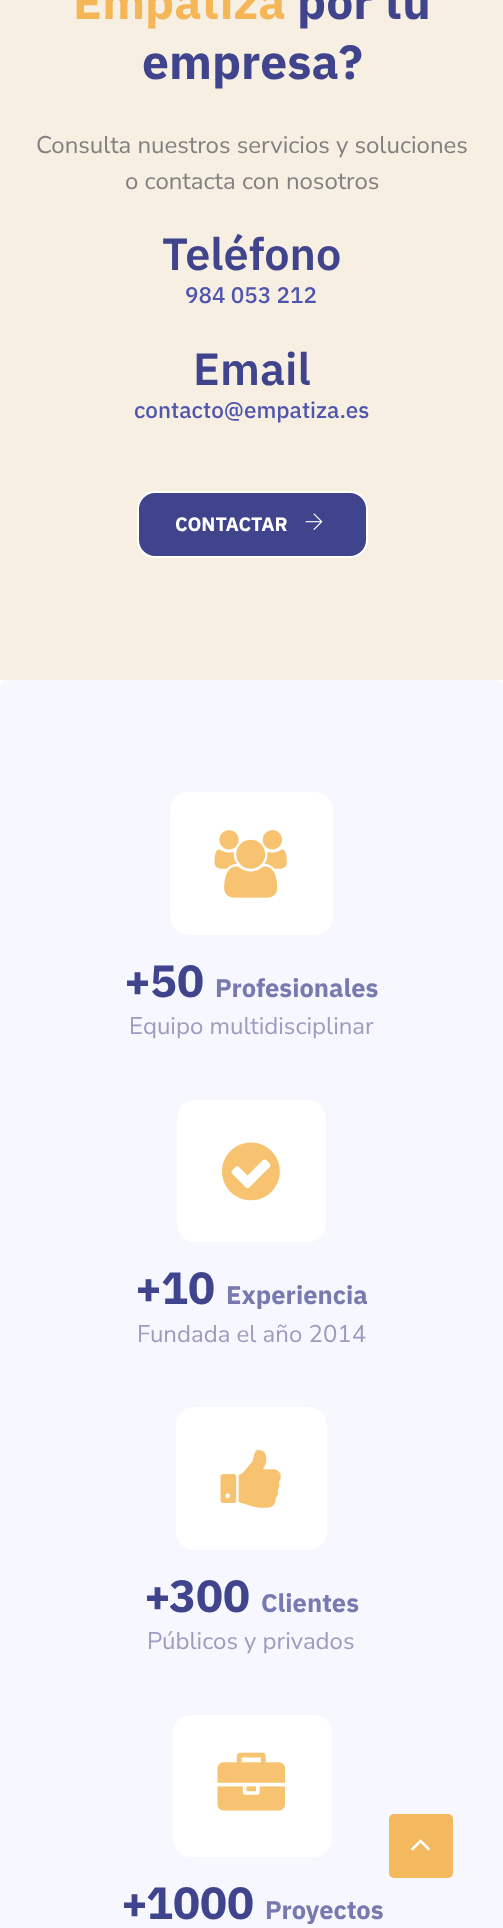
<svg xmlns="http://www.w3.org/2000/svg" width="503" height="1928">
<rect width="100%" height="100%" fill="#fff"/>
<rect width="503" height="680" fill="#f7efe2"/>
<text x="73" y="19" style="font-family:IBM Plex Sans;font-size:48px;font-weight:bold;fill:#f4b656">Empatiza</text>
<text x="297" y="19" style="font-family:IBM Plex Sans;font-size:48px;font-weight:bold;fill:#3f448c">por tu</text>
<text x="142" y="79" style="font-family:IBM Plex Sans;font-size:48px;font-weight:bold;fill:#3f448c">empresa?</text>
<text x="36" y="153" style="font-family:Nunito Sans;font-size:24px;fill:#808080">Consulta nuestros servicios y soluciones</text>
<text x="125" y="189" style="font-family:Nunito Sans;font-size:24px;fill:#808080">o contacta con nosotros</text>
<text x="162" y="270" style="font-family:IBM Plex Sans;font-size:45px;font-weight:600;fill:#3f448c">Teléfono</text>
<text x="185" y="303" style="font-family:IBM Plex Sans;font-size:22.5px;font-weight:500;fill:#4f55ac">984 053 212</text>
<text x="193" y="385" style="font-family:IBM Plex Sans;font-size:45px;font-weight:600;fill:#3f448c">Email</text>
<text x="134" y="418" style="font-family:IBM Plex Sans;font-size:22.5px;font-weight:500;fill:#4f55ac">contacto@empatiza.es</text>
<rect x="138" y="492" width="229" height="65" rx="17" fill="#3f448c" stroke="#fff" stroke-width="2"/>
<text x="175" y="531" style="font-family:IBM Plex Sans;font-size:19.5px;font-weight:bold;fill:#fff">CONTACTAR</text>
<image x="305" y="513" width="18" height="17" href="media/1.png"/>
<rect y="680" width="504" height="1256" rx="8" fill="#f7f7ff"/>
<circle cx="258" cy="929" r="6" fill="#fff"/>
<rect x="170" y="792" width="163" height="143" rx="18" fill="#ffffffe6"/>
<image x="214" y="830" width="73" height="68" href="media/2.png"/>
<text x="124" y="997" style="font-family:IBM Plex Sans;font-size:45px;font-weight:bold;fill:#3f448c">+</text>
<text x="150" y="997" style="font-family:IBM Plex Sans;font-size:45px;font-weight:bold;fill:#3f448c">50</text>
<text x="215" y="997" style="font-family:IBM Plex Sans;font-size:25.5px;font-weight:bold;fill:#767aaf">Profesionales</text>
<text x="129" y="1034" style="font-family:Nunito Sans;font-size:24px;fill:#9a9cc0">Equipo multidisciplinar</text>
<circle cx="258" cy="1236" r="6" fill="#fff"/>
<rect x="177" y="1100" width="149" height="142" rx="18" fill="#ffffffe6"/>
<image x="222" y="1142" width="58" height="59" href="media/3.png"/>
<text x="135" y="1304" style="font-family:IBM Plex Sans;font-size:45px;font-weight:bold;fill:#3f448c">+</text>
<text x="161" y="1304" style="font-family:IBM Plex Sans;font-size:45px;font-weight:bold;fill:#3f448c">10</text>
<text x="226" y="1304" style="font-family:IBM Plex Sans;font-size:25.5px;font-weight:bold;fill:#767aaf">Experiencia</text>
<text x="137" y="1342" style="font-family:Nunito Sans;font-size:24px;fill:#9a9cc0">Fundada el año 2014</text>
<circle cx="258" cy="1544" r="6" fill="#fff"/>
<rect x="176" y="1407" width="151" height="143" rx="18" fill="#ffffffe6"/>
<image x="220" y="1450" width="61" height="58" href="media/4.png"/>
<text x="144" y="1612" style="font-family:IBM Plex Sans;font-size:45px;font-weight:bold;fill:#3f448c">+</text>
<text x="169" y="1612" style="font-family:IBM Plex Sans;font-size:45px;font-weight:bold;fill:#3f448c">300</text>
<text x="261" y="1612" style="font-family:IBM Plex Sans;font-size:25.5px;font-weight:bold;fill:#767aaf">Clientes</text>
<text x="147" y="1649" style="font-family:Nunito Sans;font-size:24px;fill:#9a9cc0">Públicos y privados</text>
<circle cx="258" cy="1851" r="6" fill="#fff"/>
<rect x="173" y="1715" width="159" height="142" rx="18" fill="#ffffffe6"/>
<image x="217" y="1752" width="68" height="59" href="media/5.png"/>
<text x="121" y="1919" style="font-family:IBM Plex Sans;font-size:45px;font-weight:bold;fill:#3f448c">+</text>
<text x="146" y="1919" style="font-family:IBM Plex Sans;font-size:45px;font-weight:bold;fill:#3f448c">1000</text>
<text x="265" y="1919" style="font-family:IBM Plex Sans;font-size:25.5px;font-weight:bold;fill:#767aaf">Proyectos</text>
<rect x="389" y="1814" width="64" height="64" rx="5" fill="#f4b95f"/>
<image x="411" y="1839" width="20" height="12" href="media/6.png"/>
</svg>
